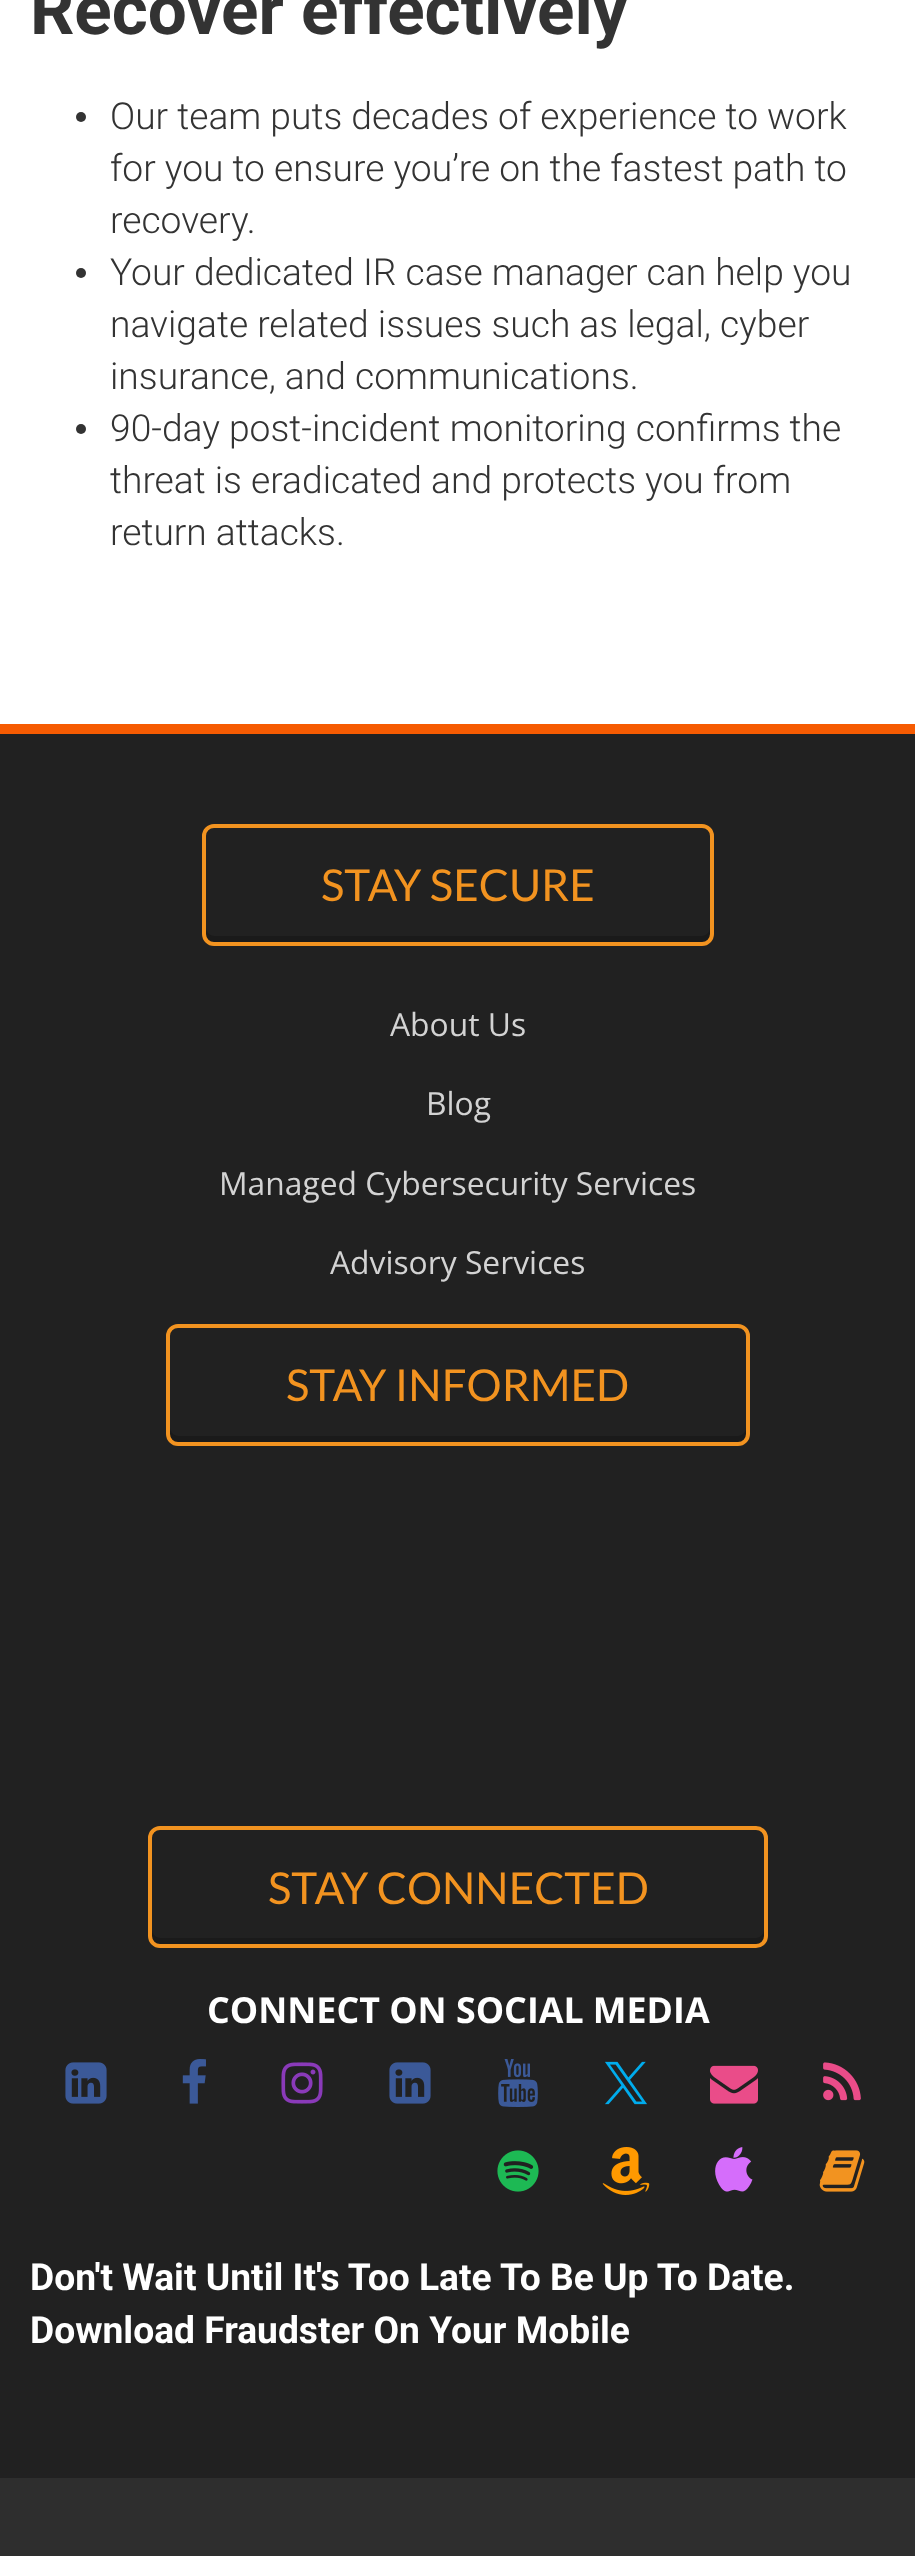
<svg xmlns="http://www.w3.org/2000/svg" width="915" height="2556">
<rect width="100%" height="100%" fill="#fff"/>
<text x="30" y="34" style="font-family:Roboto;font-size:69.25px;font-weight:bold;fill:#333">Recover effectively</text>
<circle cx="81" cy="117" r="5" fill="#333"/>
<text x="110" y="129" style="font-family:Roboto;font-size:37.2px;font-weight:300;fill:#333">Our team puts decades of experience to work</text>
<text x="110" y="181" style="font-family:Roboto;font-size:37.2px;font-weight:300;fill:#333">for you to ensure you’re on the fastest path to</text>
<text x="110" y="233" style="font-family:Roboto;font-size:37.2px;font-weight:300;fill:#333">recovery.</text>
<circle cx="81" cy="273" r="5" fill="#333"/>
<text x="110" y="285" style="font-family:Roboto;font-size:37.2px;font-weight:300;fill:#333">Your dedicated IR case manager can help you</text>
<text x="110" y="337" style="font-family:Roboto;font-size:37.2px;font-weight:300;fill:#333">navigate related issues such as legal, cyber</text>
<text x="110" y="389" style="font-family:Roboto;font-size:37.2px;font-weight:300;fill:#333">insurance, and communications.</text>
<circle cx="81" cy="429" r="5" fill="#333"/>
<text x="110" y="441" style="font-family:Roboto;font-size:37.2px;font-weight:300;fill:#333">90-day post-incident monitoring confirms the</text>
<text x="110" y="493" style="font-family:Roboto;font-size:37.2px;font-weight:300;fill:#333">threat is eradicated and protects you from</text>
<text x="110" y="545" style="font-family:Roboto;font-size:37.2px;font-weight:300;fill:#333">return attacks.</text>
<rect y="734" width="915" height="1744" fill="#212121"/>
<rect y="724" width="915" height="10" fill="#f65b02"/>
<path d="M206 928v6c0 4 4 8 8 8h488c4 0 8-4 8-8v-6c0 4-4 8-8 8h-488c-4 0-8-4-8-8z" fill="#1a1a1a"/>
<rect x="204" y="826" width="508" height="118" rx="10" fill="none" stroke="#f29320" stroke-width="4"/>
<text x="321" y="901" style="font-family:Lato;font-size:44px;fill:#f29320">STAY SECURE</text>
<text x="390" y="1036" style="font-family:Open Sans;font-size:31.8px;fill:#d3d3d3">About Us</text>
<text x="426" y="1115" style="font-family:Open Sans;font-size:31.8px;fill:#d3d3d3">Blog</text>
<text x="219" y="1195" style="font-family:Open Sans;font-size:31.8px;fill:#d3d3d3">Managed Cybersecurity Services</text>
<text x="330" y="1274" style="font-family:Open Sans;font-size:31.8px;fill:#d3d3d3">Advisory Services</text>
<path d="M170 1428c0 5-1 12 6 14h564c7-2 6-9 6-14c0 4-4 8-8 8h-560c-4 0-8-4-8-8z" fill="#1a1a1a"/>
<rect x="168" y="1326" width="580" height="118" rx="10" fill="none" stroke="#f29320" stroke-width="4"/>
<text x="286" y="1401" style="font-family:Lato;font-size:44px;fill:#f29320">STAY INFORMED</text>
<path d="M152 1930c0 6 0 14 8 14h596c8 0 8-8 8-14c0 4-4 8-8 8h-596c-4 0-8-4-8-8z" fill="#1a1a1a"/>
<rect x="150" y="1828" width="616" height="118" rx="10" fill="none" stroke="#f29320" stroke-width="4"/>
<text x="268" y="1904" style="font-family:Lato;font-size:44px;fill:#f29320">STAY CONNECTED</text>
<text x="207" y="2023" style="font-family:Open Sans;font-size:35.75px;font-weight:bold;fill:#fff">CONNECT ON SOCIAL MEDIA</text>
<image x="65" y="2062" width="42" height="42" href="media/1.png"/>
<image x="182" y="2059" width="24" height="45" href="media/2.png"/>
<image x="281" y="2062" width="42" height="42" href="media/3.png"/>
<image x="389" y="2062" width="42" height="42" href="media/1.png"/>
<image x="498" y="2059" width="40" height="48" href="media/4.png"/>
<image x="605" y="2061" width="42" height="44" href="media/5.png"/>
<image x="710" y="2065" width="48" height="39" href="media/6.png"/>
<image x="823" y="2062" width="38" height="39" href="media/7.png"/>
<image x="497" y="2150" width="42" height="42" href="media/8.png"/>
<image x="602" y="2147" width="48" height="48" href="media/9.png"/>
<image x="715" y="2147" width="38" height="45" href="media/10.png"/>
<image x="819" y="2150" width="46" height="42" href="media/11.png"/>
<text x="30" y="2290" style="font-family:Roboto;font-size:37.2px;font-weight:bold;fill:#fff">Don't Wait Until It's Too Late To Be Up To Date.</text>
<text x="30" y="2343" style="font-family:Roboto;font-size:37.2px;font-weight:bold;fill:#fff">Download Fraudster On Your Mobile</text>
<rect y="2478" width="915" height="78" fill="#2e2e2e"/>
</svg>
